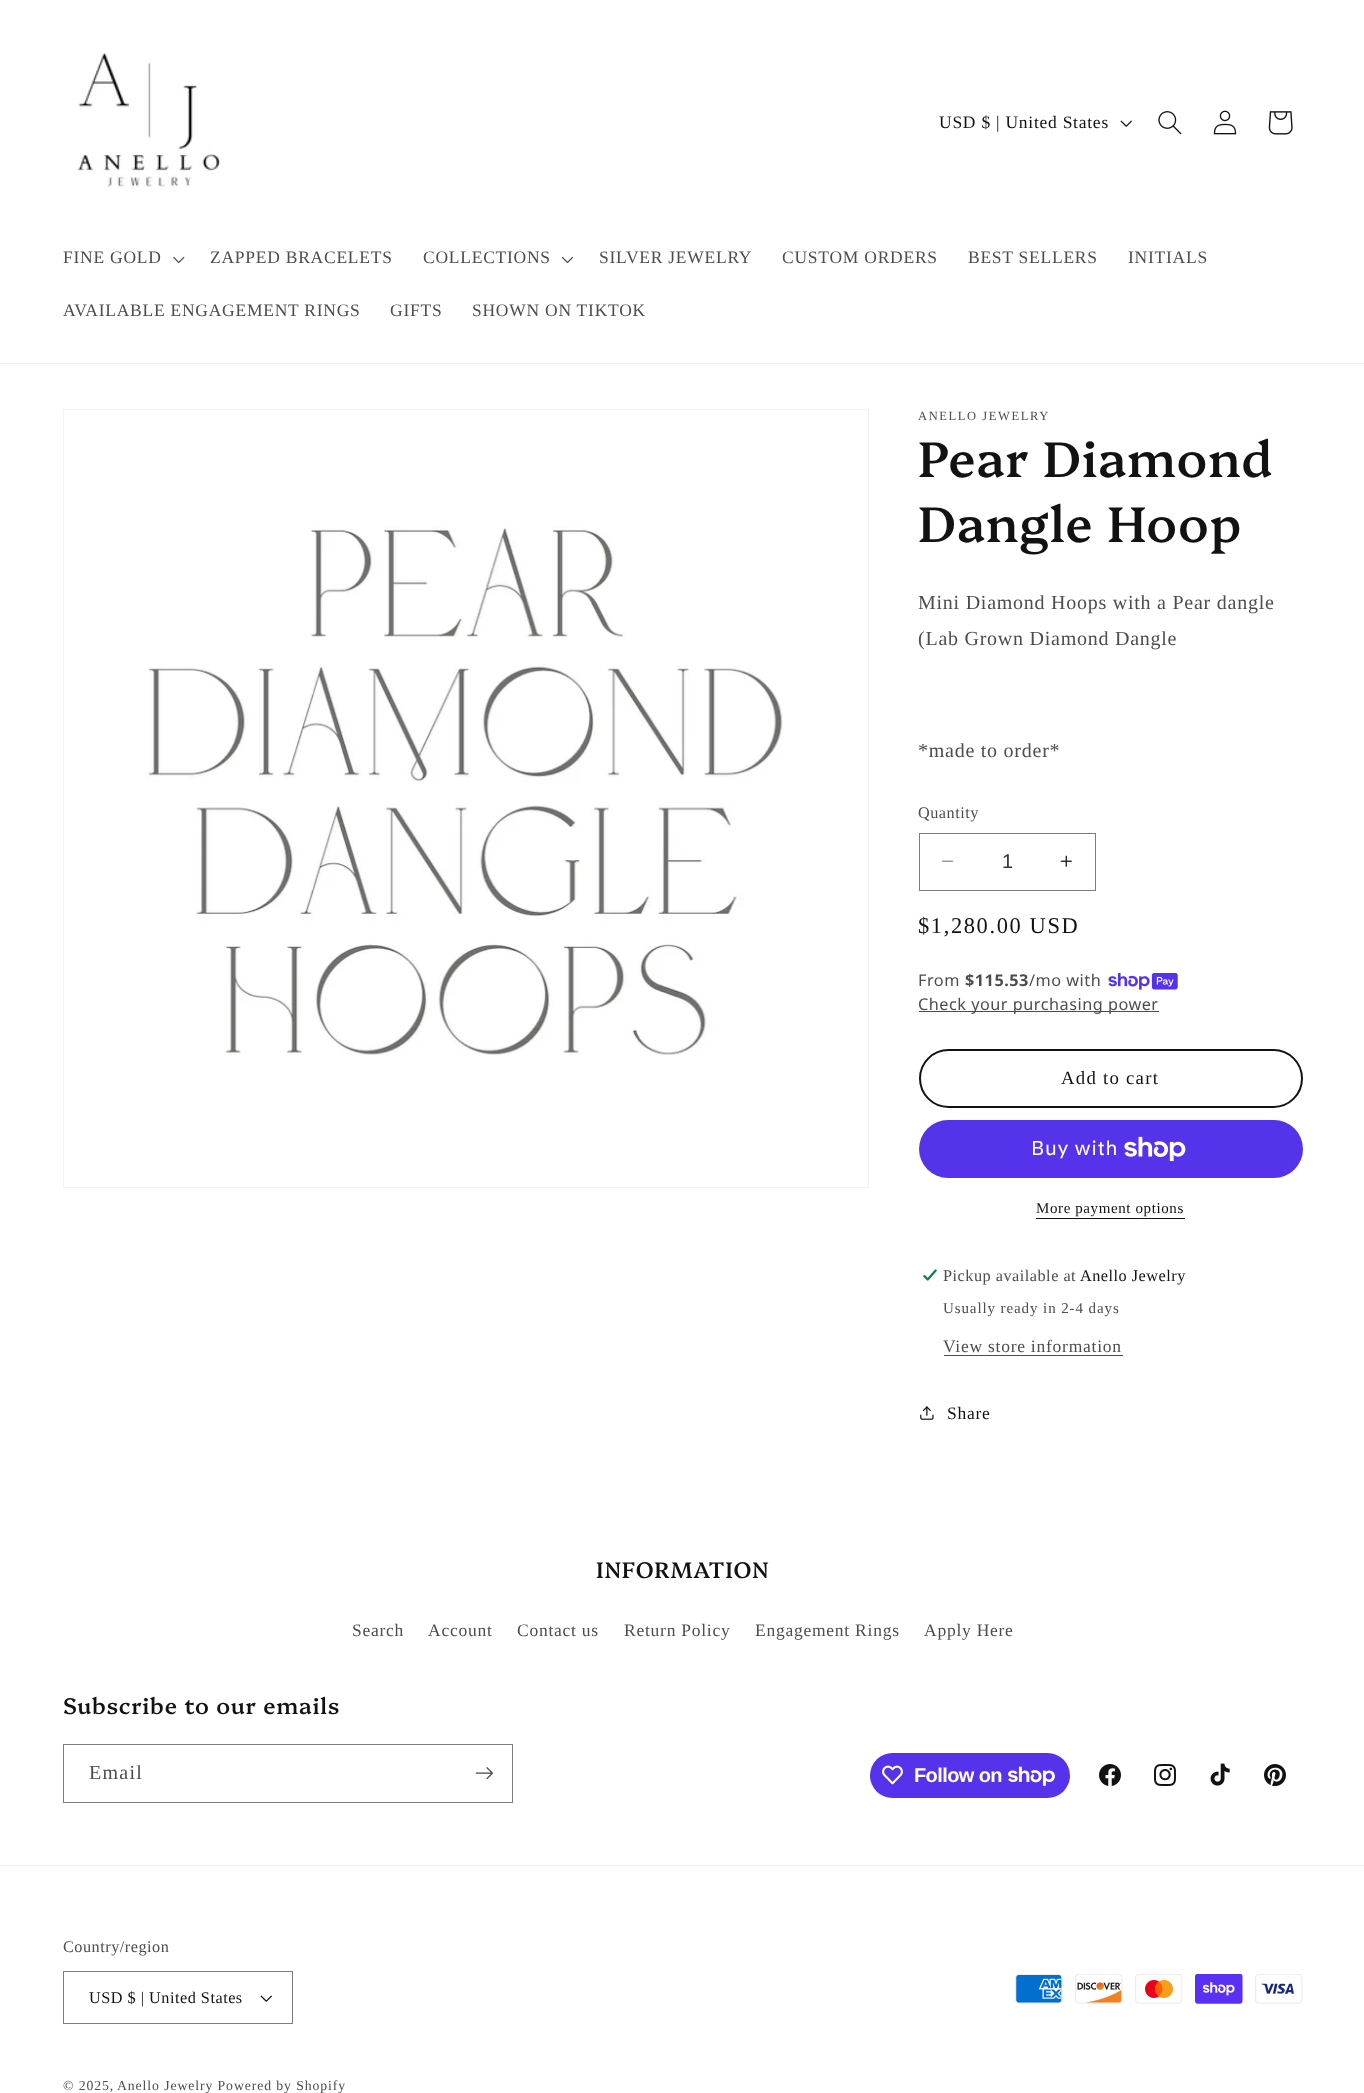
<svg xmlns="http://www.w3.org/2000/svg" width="1364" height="2093">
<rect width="100%" height="100%" fill="#fff"/>
<rect y="363" width="1364" height="1" fill="#ececec"/>
<image x="77" y="53" width="144" height="137" href="media/1.png"/>
<text x="939" y="128" style="font-family:Liberation Serif;font-size:17.5px;letter-spacing:0.75px;fill:#121212">USD $ | United States</text>
<image x="1120" y="120" width="12" height="7" href="media/2.png"/>
<image x="1158" y="111" width="24" height="24" href="media/3.png"/>
<image x="1213" y="110" width="24" height="25" href="media/4.png"/>
<image x="1268" y="111" width="25" height="24" href="media/5.png"/>
<text x="63" y="263" style="font-family:Liberation Serif;font-size:17.5px;letter-spacing:0.75px;fill:#4d4d4d">FINE GOLD</text>
<image x="173" y="256" width="12" height="8" href="media/6.png"/>
<text x="210" y="263" style="font-family:Liberation Serif;font-size:17.5px;letter-spacing:0.75px;fill:#4d4d4d">ZAPPED BRACELETS</text>
<text x="423" y="263" style="font-family:Liberation Serif;font-size:17.5px;letter-spacing:0.75px;fill:#4d4d4d">COLLECTIONS</text>
<image x="561" y="256" width="13" height="8" href="media/7.png"/>
<text x="599" y="263" style="font-family:Liberation Serif;font-size:17.5px;letter-spacing:0.75px;fill:#4d4d4d">SILVER JEWELRY</text>
<text x="782" y="263" style="font-family:Liberation Serif;font-size:17.5px;letter-spacing:0.75px;fill:#4d4d4d">CUSTOM ORDERS</text>
<text x="968" y="263" style="font-family:Liberation Serif;font-size:17.5px;letter-spacing:0.75px;fill:#4d4d4d">BEST SELLERS</text>
<text x="1128" y="263" style="font-family:Liberation Serif;font-size:17.5px;letter-spacing:0.75px;fill:#4d4d4d">INITIALS</text>
<text x="63" y="316" style="font-family:Liberation Serif;font-size:17.5px;letter-spacing:0.75px;fill:#4d4d4d">AVAILABLE ENGAGEMENT RINGS</text>
<text x="390" y="316" style="font-family:Liberation Serif;font-size:17.5px;letter-spacing:0.75px;fill:#4d4d4d">GIFTS</text>
<text x="472" y="316" style="font-family:Liberation Serif;font-size:17.5px;letter-spacing:0.75px;fill:#4d4d4d">SHOWN ON TIKTOK</text>
<rect x="63.5" y="409.5" width="805" height="778" fill="none" stroke="#f3f3f3"/>
<image x="146" y="527" width="637" height="528" href="media/8.png"/>
<text x="918" y="420" style="font-family:Liberation Serif;font-size:12.5px;letter-spacing:1.6px;fill:#4d4d4d">ANELLO JEWELRY</text>
<text x="918" y="477" style="font-family:Platypi;font-size:50px;font-weight:500;letter-spacing:0.75px;fill:#121212">Pear Diamond</text>
<text x="918" y="542" style="font-family:Platypi;font-size:50px;font-weight:500;letter-spacing:0.75px;fill:#121212">Dangle Hoop</text>
<text x="918" y="609" style="font-family:Liberation Serif;font-size:20px;letter-spacing:0.75px;fill:#4d4d4d">Mini Diamond Hoops with a Pear dangle</text>
<text x="918" y="645" style="font-family:Liberation Serif;font-size:20px;letter-spacing:0.75px;fill:#4d4d4d">(Lab Grown Diamond Dangle</text>
<text x="918" y="757" style="font-family:Liberation Serif;font-size:20px;letter-spacing:0.75px;fill:#4d4d4d">*made to order*</text>
<text x="918" y="818" style="font-family:Liberation Serif;font-size:16.25px;letter-spacing:0.5px;fill:#4d4d4d">Quantity</text>
<image x="942" y="860" width="11" height="2" href="media/9.png"/>
<image x="1060" y="855" width="12" height="12" href="media/10.png"/>
<rect x="919.5" y="833.5" width="176" height="57" fill="none" stroke="#7d7d7d"/>
<text x="1002" y="868" style="font-family:Liberation Sans;font-size:20px;fill:#363636">1</text>
<text x="918" y="933" style="font-family:Liberation Serif;font-size:22.5px;letter-spacing:1.6px;fill:#121212">$1,280.00 USD</text>
<text x="918" y="986" style="font-family:Noto Sans;font-size:16.25px;letter-spacing:0.5px;fill:#4d4d4d">From</text>
<text x="965" y="986" style="font-family:Noto Sans;font-size:16.25px;font-weight:bold;letter-spacing:0.5px;fill:#4d4d4d">$115.53</text>
<text x="1029" y="986" style="font-family:Noto Sans;font-size:16.25px;letter-spacing:0.5px;fill:#4d4d4d">/mo with</text>
<image x="1108" y="973" width="70" height="17" href="media/11.png"/>
<rect x="919" y="1011" width="240" height="1" fill="#4d4d4d"/>
<text x="918" y="1010" style="font-family:Noto Sans;font-size:16.25px;letter-spacing:0.5px;fill:#4d4d4d">Check your purchasing power</text>
<rect x="920" y="1050" width="382" height="57" rx="28.5" fill="none" stroke="#121212" stroke-width="2"/>
<text x="1061" y="1084" style="font-family:Liberation Serif;font-size:18.75px;letter-spacing:1.25px;fill:#121212">Add to cart</text>
<rect x="919" y="1120" width="384" height="58" rx="29" fill="#5433eb"/>
<text x="1031" y="1155" style="font-family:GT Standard;font-size:20px;letter-spacing:0.75px;fill:#fff">Buy with</text>
<image x="1124" y="1136" width="62" height="25" href="media/12.png"/>
<text x="1036" y="1213" style="font-family:Liberation Serif;font-size:15px;letter-spacing:0.6px;fill:#121212">More payment options</text>
<rect x="1036" y="1218" width="149" height="1" fill="#121212"/>
<image x="922" y="1268" width="16" height="14" href="media/13.png"/>
<text x="943" y="1281" style="font-family:Liberation Serif;font-size:16.25px;letter-spacing:0.5px;fill:#4d4d4d">Pickup available at</text>
<text x="1080" y="1281" style="font-family:Liberation Serif;font-size:16.25px;letter-spacing:0.5px;fill:#121212">Anello Jewelry</text>
<text x="943" y="1313" style="font-family:Liberation Serif;font-size:15px;letter-spacing:0.9px;fill:#4d4d4d">Usually ready in 2-4 days</text>
<text x="943" y="1352" style="font-family:Liberation Serif;font-size:17.5px;letter-spacing:0.75px;fill:#4d4d4d">View store information</text>
<rect x="944" y="1355" width="179" height="1" fill="#4d4d4d"/>
<image x="920" y="1406" width="14" height="14" href="media/14.png"/>
<text x="947" y="1419" style="font-family:Liberation Serif;font-size:17.5px;letter-spacing:0.75px;fill:#121212">Share</text>
<text x="596" y="1578" style="font-family:Platypi;font-size:22.5px;font-weight:500;letter-spacing:0.75px;fill:#121212">INFORMATION</text>
<text x="352" y="1636" style="font-family:Liberation Serif;font-size:17.5px;letter-spacing:0.75px;fill:#4d4d4d">Search</text>
<text x="428" y="1636" style="font-family:Liberation Serif;font-size:17.5px;letter-spacing:0.75px;fill:#4d4d4d">Account</text>
<text x="517" y="1636" style="font-family:Liberation Serif;font-size:17.5px;letter-spacing:0.75px;fill:#4d4d4d">Contact us</text>
<text x="624" y="1636" style="font-family:Liberation Serif;font-size:17.5px;letter-spacing:0.75px;fill:#4d4d4d">Return Policy</text>
<text x="755" y="1636" style="font-family:Liberation Serif;font-size:17.5px;letter-spacing:0.75px;fill:#4d4d4d">Engagement Rings</text>
<text x="924" y="1636" style="font-family:Liberation Serif;font-size:17.5px;letter-spacing:0.75px;fill:#4d4d4d">Apply Here</text>
<text x="63" y="1714" style="font-family:Platypi;font-size:22.5px;font-weight:500;letter-spacing:0.75px;fill:#121212">Subscribe to our emails</text>
<rect x="63.5" y="1744.5" width="449" height="58" fill="none" stroke="#7d7d7d"/>
<text x="89" y="1779" style="font-family:Liberation Serif;font-size:20px;letter-spacing:1.25px;fill:#4d4d4d">Email</text>
<image x="475" y="1767" width="18" height="13" href="media/15.png"/>
<rect x="870" y="1753" width="200" height="45" rx="22.5" fill="#5433eb"/>
<image x="882" y="1765" width="21" height="20" href="media/16.png"/>
<text x="914" y="1782" style="font-family:Liberation Sans;font-size:20px;font-weight:bold;letter-spacing:-0.6px;fill:#fff">Follow on</text>
<image x="1008" y="1766" width="47" height="20" href="media/17.png"/>
<image x="1099" y="1764" width="22" height="22" href="media/18.png"/>
<image x="1154" y="1764" width="22" height="22" href="media/19.png"/>
<image x="1210" y="1763" width="20" height="23" href="media/20.png"/>
<image x="1264" y="1764" width="22" height="23" href="media/21.png"/>
<rect y="1865" width="1364" height="1" fill="#ececec"/>
<text x="63" y="1952" style="font-family:Liberation Serif;font-size:16.25px;letter-spacing:0.5px;fill:#4d4d4d">Country/region</text>
<image x="260" y="1995" width="12" height="7" href="media/2.png"/>
<rect x="63.5" y="1971.5" width="229" height="52" fill="none" stroke="#7d7d7d"/>
<text x="89" y="2003" style="font-family:Liberation Serif;font-size:16.25px;letter-spacing:0.5px;fill:#121212">USD $ | United States</text>
<image x="1015" y="1974" width="48" height="30" href="media/22.png"/>
<image x="1075" y="1974" width="48" height="30" href="media/23.png"/>
<image x="1135" y="1974" width="48" height="30" href="media/24.png"/>
<image x="1195" y="1974" width="48" height="30" href="media/25.png"/>
<image x="1255" y="1974" width="48" height="30" href="media/26.png"/>
<text x="63" y="2090" style="font-family:Liberation Serif;font-size:13.75px;letter-spacing:0.9px;fill:#4d4d4d">© 2025,</text>
<text x="117" y="2090" style="font-family:Liberation Serif;font-size:13.75px;letter-spacing:0.9px;fill:#4d4d4d">Anello Jewelry Powered by Shopify</text>
</svg>
